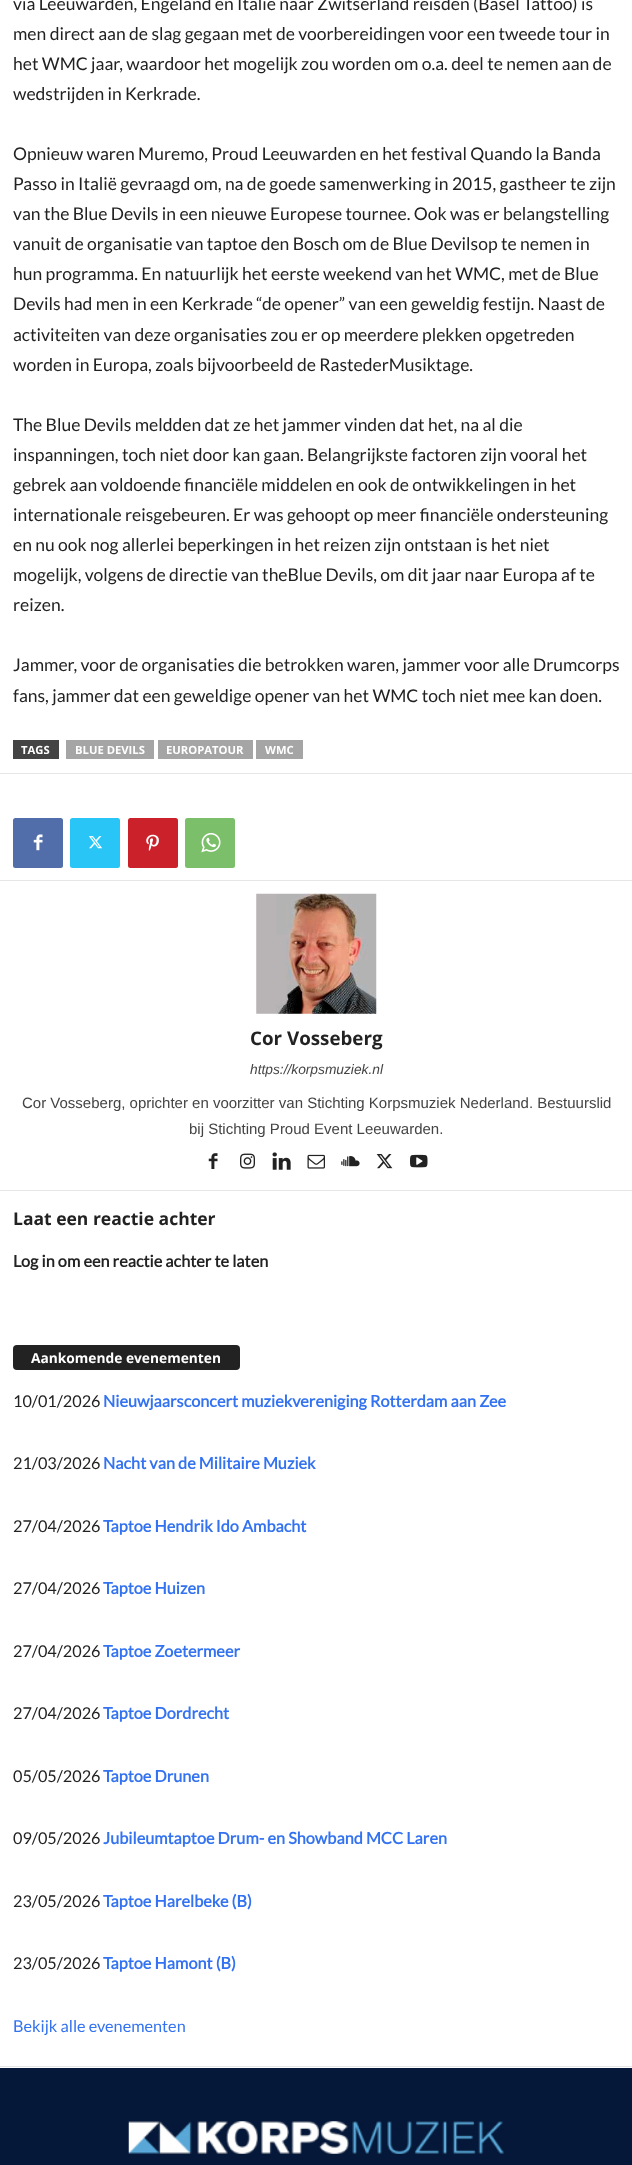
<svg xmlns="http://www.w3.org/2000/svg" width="632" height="2165">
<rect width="100%" height="100%" fill="#fff"/>
<rect y="2066" width="632" height="1" fill="#e6e6e6"/>
<text x="13" y="10" style="font-family:Lato;font-size:17.5px;fill:#222">via Leeuwarden, Engeland en Italië naar Zwitserland reisden (Basel Tattoo) is</text>
<text x="13" y="40" style="font-family:Lato;font-size:17.5px;fill:#222">men direct aan de slag gegaan met de voorbereidingen voor een tweede tour in</text>
<text x="13" y="70" style="font-family:Lato;font-size:17.5px;fill:#222">het WMC jaar, waardoor het mogelijk zou worden om o.a. deel te nemen aan de</text>
<text x="13" y="100" style="font-family:Lato;font-size:17.5px;fill:#222">wedstrijden in Kerkrade.</text>
<text x="13" y="160" style="font-family:Lato;font-size:17.5px;fill:#222">Opnieuw waren Muremo, Proud Leeuwarden en het festival Quando la Banda</text>
<text x="13" y="190" style="font-family:Lato;font-size:17.5px;fill:#222">Passo in Italië gevraagd om, na de goede samenwerking in 2015, gastheer te zijn</text>
<text x="13" y="220" style="font-family:Lato;font-size:17.5px;fill:#222">van the Blue Devils in een nieuwe Europese tournee. Ook was er belangstelling</text>
<text x="13" y="250" style="font-family:Lato;font-size:17.5px;fill:#222">vanuit de organisatie van taptoe den Bosch om de Blue Devilsop te nemen in</text>
<text x="13" y="280" style="font-family:Lato;font-size:17.5px;fill:#222">hun programma. En natuurlijk het eerste weekend van het WMC, met de Blue</text>
<text x="13" y="310" style="font-family:Lato;font-size:17.5px;fill:#222">Devils had men in een Kerkrade “de opener” van een geweldig festijn. Naast de</text>
<text x="13" y="341" style="font-family:Lato;font-size:17.5px;fill:#222">activiteiten van deze organisaties zou er op meerdere plekken opgetreden</text>
<text x="13" y="371" style="font-family:Lato;font-size:17.5px;fill:#222">worden in Europa, zoals bijvoorbeeld de RastederMusiktage.</text>
<text x="13" y="431" style="font-family:Lato;font-size:17.5px;fill:#222">The Blue Devils meldden dat ze het jammer vinden dat het, na al die</text>
<text x="13" y="461" style="font-family:Lato;font-size:17.5px;fill:#222">inspanningen, toch niet door kan gaan. Belangrijkste factoren zijn vooral het</text>
<text x="13" y="491" style="font-family:Lato;font-size:17.5px;fill:#222">gebrek aan voldoende financiële middelen en ook de ontwikkelingen in het</text>
<text x="13" y="521" style="font-family:Lato;font-size:17.5px;fill:#222">internationale reisgebeuren. Er was gehoopt op meer financiële ondersteuning</text>
<text x="13" y="551" style="font-family:Lato;font-size:17.5px;fill:#222">en nu ook nog allerlei beperkingen in het reizen zijn ontstaan is het niet</text>
<text x="13" y="581" style="font-family:Lato;font-size:17.5px;fill:#222">mogelijk, volgens de directie van theBlue Devils, om dit jaar naar Europa af te</text>
<text x="13" y="611" style="font-family:Lato;font-size:17.5px;fill:#222">reizen.</text>
<text x="13" y="671" style="font-family:Lato;font-size:17.5px;fill:#222">Jammer, voor de organisaties die betrokken waren, jammer voor alle Drumcorps</text>
<text x="13" y="702" style="font-family:Lato;font-size:17.5px;fill:#222">fans, jammer dat een geweldige opener van het WMC toch niet mee kan doen.</text>
<rect x="13" y="740" width="46" height="19" fill="#444"/>
<text x="21" y="754" style="font-family:Open Sans;font-size:11.25px;font-weight:bold;fill:#fff">TAGS</text>
<rect x="66" y="740" width="88" height="19" fill="#a5a5a5"/>
<text x="75" y="754" style="font-family:Open Sans;font-size:11.25px;font-weight:bold;fill:#fff">BLUE DEVILS</text>
<rect x="158" y="740" width="95" height="19" fill="#a5a5a5"/>
<text x="166" y="754" style="font-family:Open Sans;font-size:11.25px;font-weight:bold;fill:#fff">EUROPATOUR</text>
<rect x="256" y="740" width="47" height="19" fill="#a5a5a5"/>
<text x="265" y="754" style="font-family:Open Sans;font-size:11.25px;font-weight:bold;fill:#fff">WMC</text>
<rect y="773" width="632" height="1" fill="#e6e6e6"/>
<rect x="13" y="818" width="50" height="50" rx="2.5" fill="#516eab"/>
<image x="33" y="834" width="10" height="17" href="media/1.png"/>
<rect x="70" y="818" width="50" height="50" rx="2.5" fill="#29c5f6"/>
<image x="88" y="836" width="15" height="13" href="media/2.png"/>
<rect x="128" y="818" width="50" height="50" rx="2.5" fill="#ca212a"/>
<image x="146" y="834" width="13" height="17" href="media/3.png"/>
<rect x="185" y="818" width="50" height="50" rx="2.5" fill="#7bbf6a"/>
<image x="201" y="833" width="20" height="20" href="media/4.png"/>
<rect y="880" width="632" height="1" fill="#e6e6e6"/>
<image x="256" y="893" width="121" height="121" href="media/5.png"/>
<text x="250" y="1045" style="font-family:Open Sans;font-size:18.75px;font-weight:bold;fill:#222">Cor Vosseberg</text>
<text x="250" y="1074" style="font-family:Liberation Sans;font-size:13.75px;font-style:italic;fill:#444">https://korpsmuziek.nl</text>
<text x="22" y="1108" style="font-family:Liberation Sans;font-size:15px;fill:#444">Cor Vosseberg, oprichter en voorzitter van Stichting Korpsmuziek Nederland. Bestuurslid</text>
<text x="189" y="1134" style="font-family:Liberation Sans;font-size:15px;fill:#444">bij Stichting Proud Event Leeuwarden.</text>
<image x="208" y="1153" width="10" height="16" href="media/6.png"/>
<image x="240" y="1153" width="15" height="16" href="media/7.png"/>
<image x="272" y="1152" width="19" height="18" href="media/8.png"/>
<image x="307" y="1154" width="18" height="15" href="media/9.png"/>
<image x="341" y="1156" width="19" height="11" href="media/10.png"/>
<image x="376" y="1154" width="17" height="15" href="media/11.png"/>
<image x="410" y="1154" width="18" height="14" href="media/12.png"/>
<rect y="1190" width="632" height="1" fill="#e6e6e6"/>
<text x="13" y="1225" style="font-family:Open Sans;font-size:17.5px;font-weight:bold;fill:#222">Laat een reactie achter</text>
<text x="13" y="1267" style="font-family:Lato;font-size:16.25px;font-weight:bold;fill:#222">Log in om een reactie achter te laten</text>
<rect x="13" y="1345" width="227" height="25" rx="4" fill="#222"/>
<text x="31" y="1363" style="font-family:Open Sans;font-size:13.75px;font-weight:bold;fill:#fff">Aankomende evenementen</text>
<text x="13" y="1407" style="font-family:Lato;font-size:16.25px;fill:#222">10/01/2026</text>
<text x="103" y="1407" style="font-family:Lato;font-size:16.25px;font-weight:bold;fill:#3372f0">Nieuwjaarsconcert muziekvereniging Rotterdam aan Zee</text>
<text x="13" y="1469" style="font-family:Lato;font-size:16.25px;fill:#222">21/03/2026</text>
<text x="103" y="1469" style="font-family:Lato;font-size:16.25px;font-weight:bold;fill:#3372f0">Nacht van de Militaire Muziek</text>
<text x="13" y="1532" style="font-family:Lato;font-size:16.25px;fill:#222">27/04/2026</text>
<text x="103" y="1532" style="font-family:Lato;font-size:16.25px;font-weight:bold;fill:#3372f0">Taptoe Hendrik Ido Ambacht</text>
<text x="13" y="1594" style="font-family:Lato;font-size:16.25px;fill:#222">27/04/2026</text>
<text x="103" y="1594" style="font-family:Lato;font-size:16.25px;font-weight:bold;fill:#3372f0">Taptoe Huizen</text>
<text x="13" y="1657" style="font-family:Lato;font-size:16.25px;fill:#222">27/04/2026</text>
<text x="103" y="1657" style="font-family:Lato;font-size:16.25px;font-weight:bold;fill:#3372f0">Taptoe Zoetermeer</text>
<text x="13" y="1719" style="font-family:Lato;font-size:16.25px;fill:#222">27/04/2026</text>
<text x="103" y="1719" style="font-family:Lato;font-size:16.25px;font-weight:bold;fill:#3372f0">Taptoe Dordrecht</text>
<text x="13" y="1782" style="font-family:Lato;font-size:16.25px;fill:#222">05/05/2026</text>
<text x="103" y="1782" style="font-family:Lato;font-size:16.25px;font-weight:bold;fill:#3372f0">Taptoe Drunen</text>
<text x="13" y="1844" style="font-family:Lato;font-size:16.25px;fill:#222">09/05/2026</text>
<text x="103" y="1844" style="font-family:Lato;font-size:16.25px;font-weight:bold;fill:#3372f0">Jubileumtaptoe Drum- en Showband MCC Laren</text>
<text x="13" y="1907" style="font-family:Lato;font-size:16.25px;fill:#222">23/05/2026</text>
<text x="103" y="1907" style="font-family:Lato;font-size:16.25px;font-weight:bold;fill:#3372f0">Taptoe Harelbeke (B)</text>
<text x="13" y="1969" style="font-family:Lato;font-size:16.25px;fill:#222">23/05/2026</text>
<text x="103" y="1969" style="font-family:Lato;font-size:16.25px;font-weight:bold;fill:#3372f0">Taptoe Hamont (B)</text>
<text x="13" y="2032" style="font-family:Lato;font-size:16.25px;fill:#3372f0">Bekijk alle evenementen</text>
<rect y="2068" width="632" height="97" fill="#051839"/>
<image x="128" y="2121" width="376" height="33" href="media/13.png"/>
</svg>
